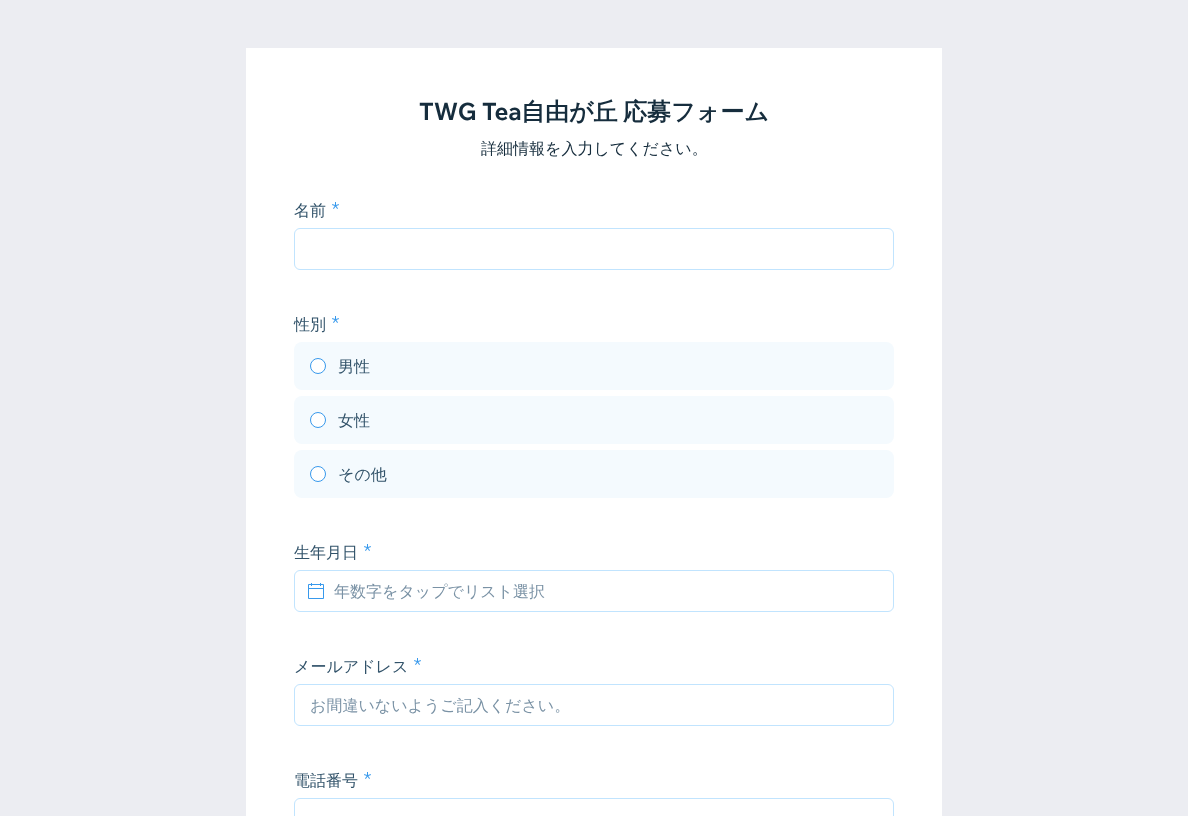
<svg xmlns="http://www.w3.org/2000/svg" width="1188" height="816">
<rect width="100%" height="100%" fill="#ecedf2"/>
<rect x="246" y="48" width="696" height="768" fill="#fff"/>
<text x="419" y="120" style="font-family:Wix Madefor Text;font-size:24px;font-weight:bold;fill:#162d3d">TWG Tea</text>
<text x="521" y="120" style="font-family:WenQuanYi Zen Hei;font-size:24px;font-weight:bold;fill:#162d3d">自由が丘</text>
<text x="623" y="120" style="font-family:WenQuanYi Zen Hei;font-size:24px;font-weight:bold;fill:#162d3d">応募フォーム</text>
<text x="481" y="154" style="font-family:WenQuanYi Zen Hei;font-size:16px;font-weight:500;fill:#162d3d">詳細情報を入力してください。</text>
<text x="294" y="216" style="font-family:WenQuanYi Zen Hei;font-size:16px;font-weight:500;fill:#32536a">名前</text>
<image x="332" y="202" width="7" height="7" href="media/1.png"/>
<rect x="294.5" y="228.5" width="599" height="41" rx="5.5" fill="none" stroke="#c1e4fe"/>
<text x="294" y="330" style="font-family:WenQuanYi Zen Hei;font-size:16px;font-weight:500;fill:#32536a">性別</text>
<image x="332" y="316" width="7" height="7" href="media/1.png"/>
<rect x="294" y="342" width="600" height="48" rx="8" fill="#f4fafe"/>
<circle cx="318" cy="366" r="7.5" fill="#fff" stroke="#3899ec"/>
<text x="338" y="372" style="font-family:WenQuanYi Zen Hei;font-size:16px;font-weight:500;fill:#32536a">男性</text>
<rect x="294" y="396" width="600" height="48" rx="8" fill="#f4fafe"/>
<circle cx="318" cy="420" r="7.5" fill="#fff" stroke="#3899ec"/>
<text x="338" y="426" style="font-family:WenQuanYi Zen Hei;font-size:16px;font-weight:500;fill:#32536a">女性</text>
<rect x="294" y="450" width="600" height="48" rx="8" fill="#f4fafe"/>
<circle cx="318" cy="474" r="7.5" fill="#fff" stroke="#3899ec"/>
<text x="338" y="480" style="font-family:WenQuanYi Zen Hei;font-size:16px;font-weight:500;fill:#32536a">その他</text>
<text x="294" y="558" style="font-family:WenQuanYi Zen Hei;font-size:16px;font-weight:500;fill:#32536a">生年月日</text>
<image x="364" y="544" width="7" height="7" href="media/1.png"/>
<rect x="294.5" y="570.5" width="599" height="41" rx="5.5" fill="none" stroke="#c1e4fe"/>
<image x="308" y="583" width="16" height="16" href="media/2.png"/>
<text x="334" y="597" style="font-family:WenQuanYi Zen Hei;font-size:16px;font-weight:500;fill:#7a92a5">年数字をタップでリスト選択</text>
<text x="294" y="672" style="font-family:WenQuanYi Zen Hei;font-size:16px;font-weight:500;fill:#32536a">メールアドレス</text>
<image x="414" y="658" width="7" height="7" href="media/1.png"/>
<rect x="294.5" y="684.5" width="599" height="41" rx="5.5" fill="none" stroke="#c1e4fe"/>
<text x="310" y="711" style="font-family:WenQuanYi Zen Hei;font-size:16px;font-weight:500;fill:#7a92a5">お間違いないようご記入ください。</text>
<text x="294" y="786" style="font-family:WenQuanYi Zen Hei;font-size:16px;font-weight:500;fill:#32536a">電話番号</text>
<image x="364" y="772" width="7" height="7" href="media/1.png"/>
<rect x="294.5" y="798.5" width="599" height="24" rx="5.5" fill="none" stroke="#c1e4fe"/>
</svg>
